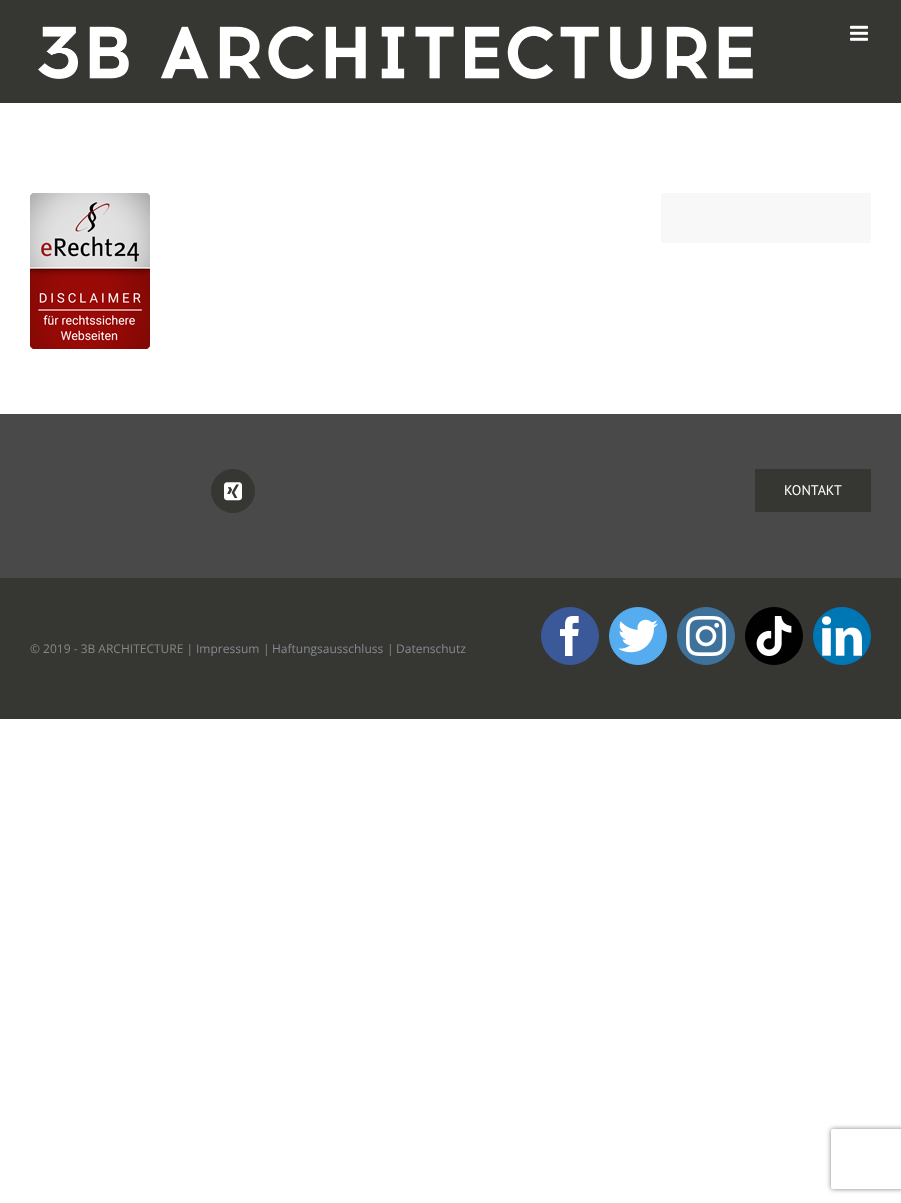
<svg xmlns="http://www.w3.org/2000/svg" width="901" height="1203">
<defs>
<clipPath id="clip1"><path d="M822 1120h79v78h-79zm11 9h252c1 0 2 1 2 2v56c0 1-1 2-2 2h-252c-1 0-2-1-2-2v-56c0-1 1-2 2-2z" clip-rule="evenodd"/></clipPath>
</defs>
<rect width="100%" height="100%" fill="#fff"/>
<rect width="901" height="103" fill="#363733"/>
<image x="38" y="26" width="715" height="53" href="media/1.png"/>
<image x="850" y="25" width="18" height="16" href="media/2.png"/>
<image x="30" y="193" width="120" height="156" href="media/3.png"/>
<rect x="661" y="193" width="210" height="50" fill="#f8f8f8"/>
<rect y="414" width="901" height="164" fill="#494949"/>
<circle cx="233" cy="491" r="21.5" fill="#363733" stroke="#363733"/>
<image x="224" y="482" width="18" height="19" href="media/4.png"/>
<rect x="755" y="469" width="116" height="43" fill="#363733"/>
<text x="784" y="495" style="font-family:PT Sans;font-size:14px;fill:#fff">KONTAKT</text>
<rect y="578" width="901" height="141" fill="#363733"/>
<text x="30" y="653" style="font-family:Open Sans;font-size:12px;fill:#878786">© 2019 - 3B ARCHITECTURE |</text>
<text x="196" y="653" style="font-family:Open Sans;font-size:12px;fill:#868a92">Impressum</text>
<text x="263" y="653" style="font-family:Open Sans;font-size:12px;fill:#878786">|</text>
<text x="272" y="653" style="font-family:Open Sans;font-size:12px;fill:#868a92">Haftungsausschluss</text>
<text x="387" y="653" style="font-family:Open Sans;font-size:12px;fill:#878786">|</text>
<text x="396" y="653" style="font-family:Open Sans;font-size:12px;fill:#868a92">Datenschutz</text>
<circle cx="570" cy="636" r="28.5" fill="#3b5998" stroke="#3b5998"/>
<image x="560" y="616" width="19" height="40" href="media/5.png"/>
<circle cx="638" cy="636" r="28.5" fill="#55acee" stroke="#55acee"/>
<image x="618" y="619" width="40" height="34" href="media/6.png"/>
<circle cx="706" cy="636" r="28.5" fill="#3f729b" stroke="#3f729b"/>
<image x="686" y="616" width="40" height="40" href="media/7.png"/>
<circle cx="774" cy="636" r="28.5" fill="#010101" stroke="#010101"/>
<image x="756" y="616" width="36" height="40" href="media/8.png"/>
<circle cx="842" cy="636" r="28.5" fill="#0077b5" stroke="#0077b5"/>
<image x="822" y="616" width="40" height="40" href="media/9.png"/>
<g clip-path="url(#clip1)">
<rect x="831" y="1129" width="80" height="60" rx="2" fill="#808080" filter="blur(2.5px)"/>
</g>
</svg>
